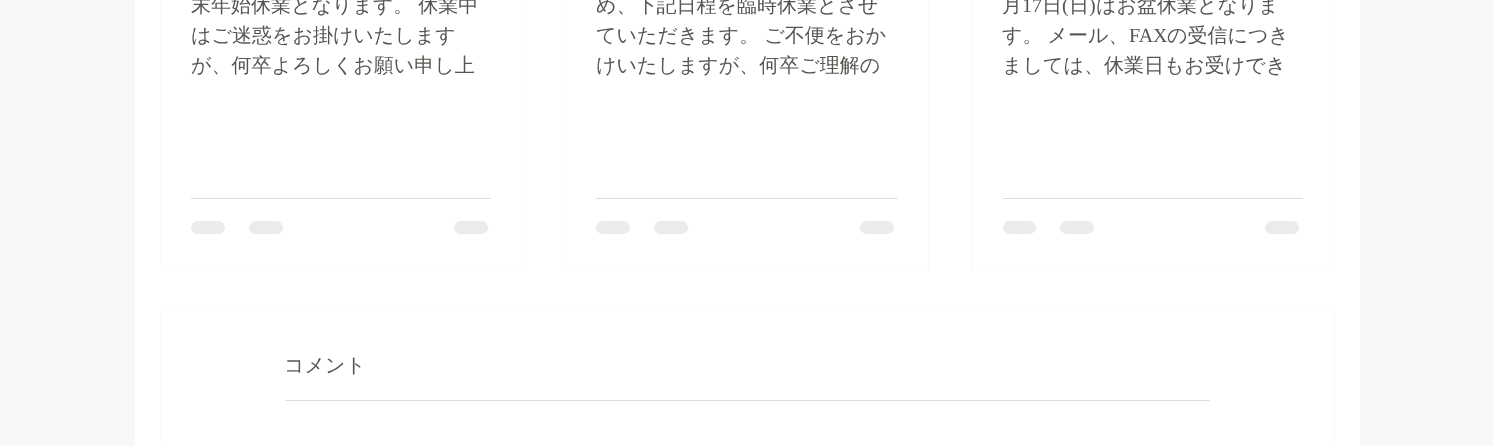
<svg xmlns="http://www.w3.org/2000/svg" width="1493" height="446">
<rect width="100%" height="100%" fill="#f8f8f8"/>
<rect x="135" width="1225" height="446" fill="#fff"/>
<rect x="160.5" y="-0.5" width="362" height="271" fill="none" stroke="#fafafa"/>
<text x="191" y="12" word-spacing="-1" style="font-family:WenQuanYi Zen Hei;font-size:20px;font-weight:500;fill:#585551">末年始休業となります。 休業中</text>
<text x="191" y="42" style="font-family:WenQuanYi Zen Hei;font-size:20px;font-weight:500;fill:#585551">はご迷惑をお掛けいたします</text>
<text x="191" y="72" style="font-family:WenQuanYi Zen Hei;font-size:20px;font-weight:500;fill:#585551">が、何卒よろしくお願い申し上</text>
<rect x="191" y="198" width="300" height="1" fill="#dedddc"/>
<rect x="191" y="221" width="34" height="13" rx="6.5" fill="#ebebea"/>
<rect x="249" y="221" width="34" height="13" rx="6.5" fill="#ebebea"/>
<rect x="454" y="221" width="34" height="13" rx="6.5" fill="#ebebea"/>
<rect x="565.5" y="-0.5" width="363" height="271" fill="none" stroke="#fafafa"/>
<text x="596" y="12" style="font-family:WenQuanYi Zen Hei;font-size:20px;font-weight:500;fill:#585551">め、下記日程を臨時休業とさせ</text>
<text x="596" y="42" word-spacing="-1" style="font-family:WenQuanYi Zen Hei;font-size:20px;font-weight:500;fill:#585551">ていただきます。 ご不便をおか</text>
<text x="596" y="72" style="font-family:WenQuanYi Zen Hei;font-size:20px;font-weight:500;fill:#585551">けいたしますが、何卒ご理解の</text>
<rect x="596" y="198" width="302" height="1" fill="#dedddc"/>
<rect x="596" y="221" width="34" height="13" rx="6.5" fill="#ebebea"/>
<rect x="654" y="221" width="34" height="13" rx="6.5" fill="#ebebea"/>
<rect x="860" y="221" width="34" height="13" rx="6.5" fill="#ebebea"/>
<rect x="971.5" y="-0.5" width="362" height="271" fill="none" stroke="#fafafa"/>
<text x="1002" y="12" style="font-family:WenQuanYi Zen Hei;font-size:20px;font-weight:500;fill:#585551">月</text>
<text x="1022" y="12" style="font-family:Liberation Serif;font-size:20px;fill:#585551">17</text>
<text x="1042" y="12" style="font-family:WenQuanYi Zen Hei;font-size:20px;font-weight:500;fill:#585551">日</text>
<text x="1062" y="12" style="font-family:Liberation Serif;font-size:20px;fill:#585551">(</text>
<text x="1069" y="12" style="font-family:WenQuanYi Zen Hei;font-size:20px;font-weight:500;fill:#585551">日</text>
<text x="1089" y="12" style="font-family:Liberation Serif;font-size:20px;fill:#585551">)</text>
<text x="1096" y="12" style="font-family:WenQuanYi Zen Hei;font-size:20px;font-weight:500;fill:#585551">はお盆休業となりま</text>
<text x="1002" y="42" word-spacing="-1" style="font-family:WenQuanYi Zen Hei;font-size:20px;font-weight:500;fill:#585551">す。 メール、</text>
<text x="1129" y="42" style="font-family:Liberation Serif;font-size:20px;fill:#585551">FAX</text>
<text x="1167" y="42" style="font-family:WenQuanYi Zen Hei;font-size:20px;font-weight:500;fill:#585551">の受信につき</text>
<text x="1002" y="72" style="font-family:WenQuanYi Zen Hei;font-size:20px;font-weight:500;fill:#585551">ましては、休業日もお受けでき</text>
<rect x="1003" y="198" width="300" height="1" fill="#dedddc"/>
<rect x="1003" y="221" width="33" height="13" rx="6.5" fill="#ebebea"/>
<rect x="1060" y="221" width="34" height="13" rx="6.5" fill="#ebebea"/>
<rect x="1265" y="221" width="34" height="13" rx="6.5" fill="#ebebea"/>
<rect x="160.5" y="309.5" width="1174" height="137" fill="none" stroke="#fafafa"/>
<text x="284" y="372" style="font-family:WenQuanYi Zen Hei;font-size:20px;font-weight:500;fill:#585551">コメント</text>
<rect x="285" y="400" width="925" height="1" fill="#dedddc"/>
</svg>
